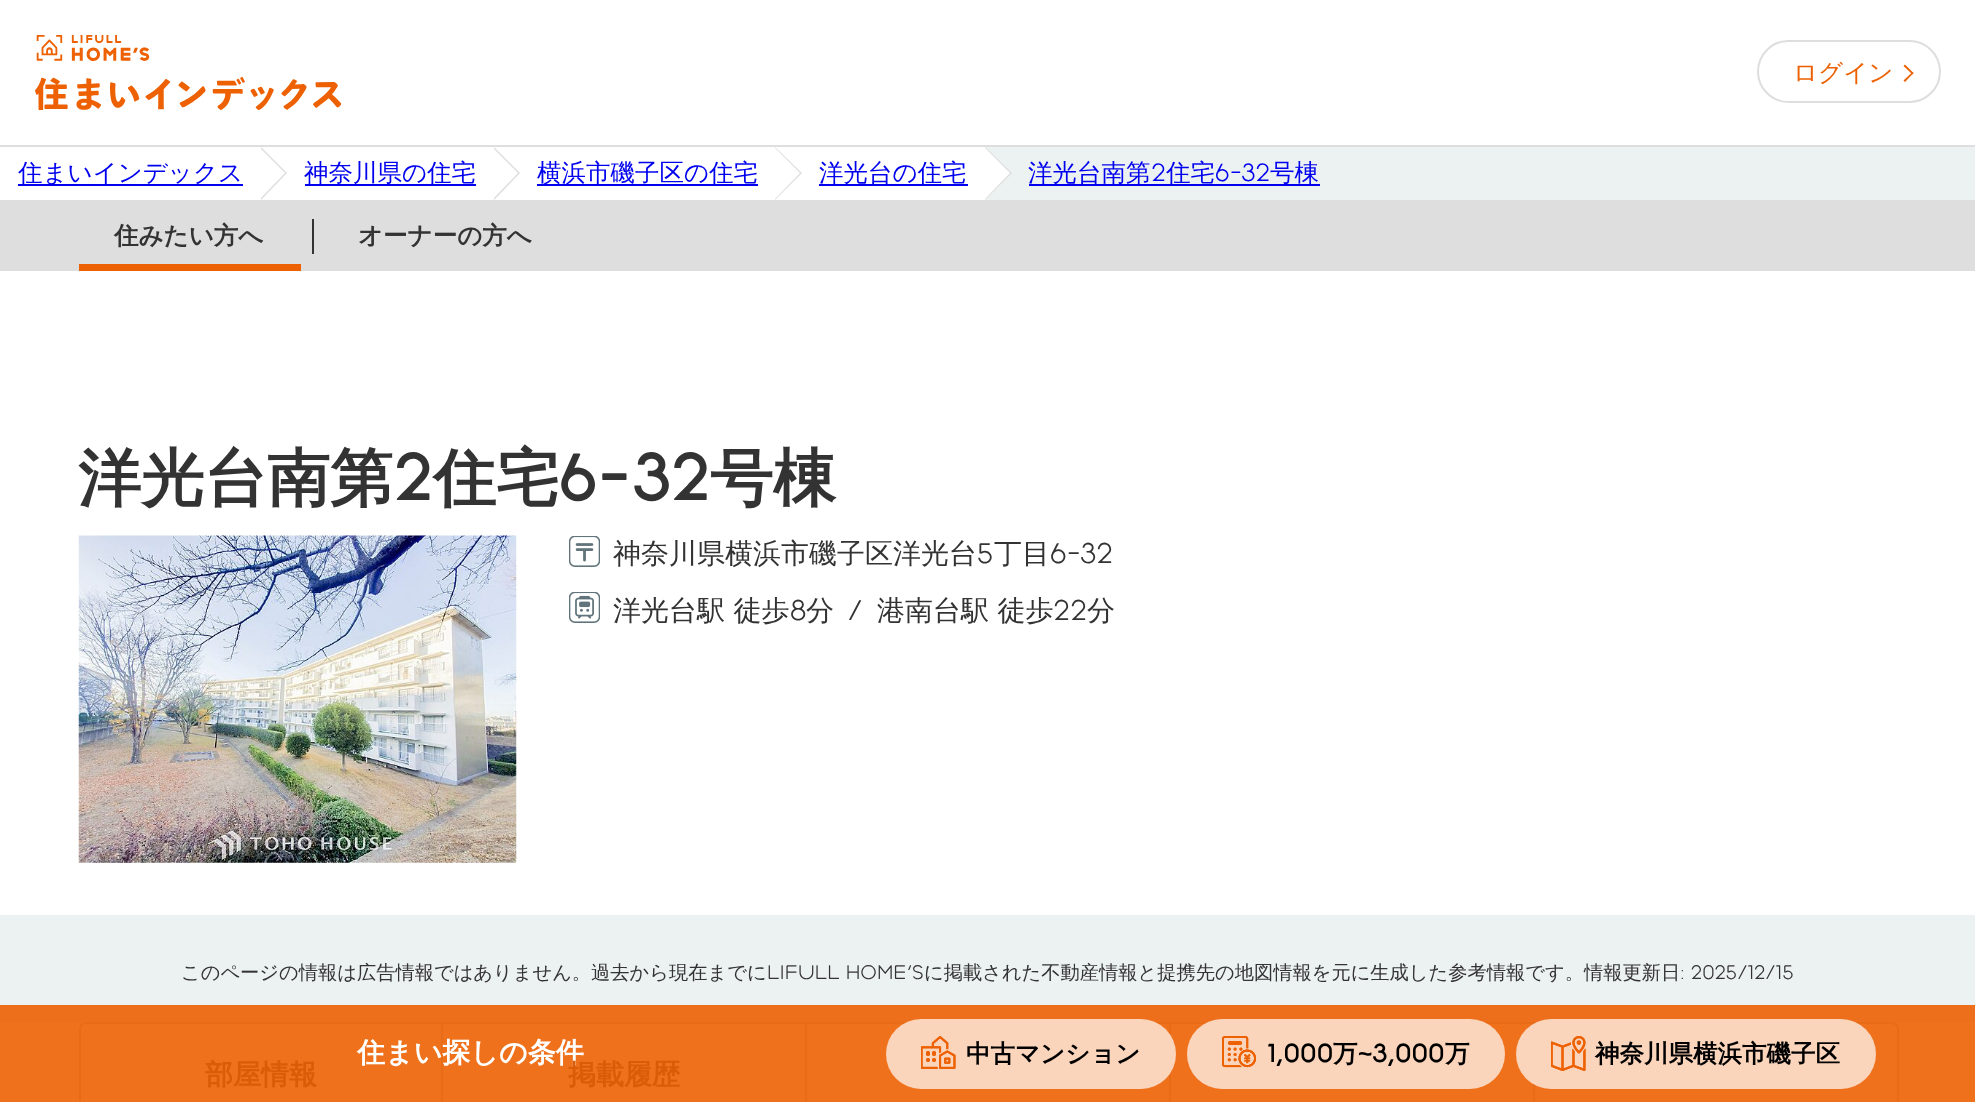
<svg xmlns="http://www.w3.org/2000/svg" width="1975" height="1102">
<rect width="100%" height="100%" fill="#ecf1f1"/>
<rect y="1005" width="1975" height="17" fill="#ed6f1b"/>
<rect width="1975" height="145" fill="#fff"/>
<rect y="145" width="1975" height="2" fill="#dedede"/>
<image x="35" y="35" width="306" height="75" href="media/1.png"/>
<rect x="1758" y="41" width="182" height="61" rx="30.5" fill="none" stroke="#dedede" stroke-width="2"/>
<text x="1793" y="81" style="font-family:WenQuanYi Zen Hei;font-size:24.5px;font-weight:500;fill:#ed6103">ログイン</text>
<path d="M1905 64.5l8.5 8.5l-1 1.5l-9-8.5z" fill="#ed6103"/>
<path d="M1912.5 72l1 1l-8.5 9l-1.5-1.5z" fill="#ed6103"/>
<rect y="200" width="1975" height="1" fill="#dedede"/>
<rect y="147" width="985" height="53" fill="#fff"/>
<path d="M261 200v-53l26 26z" fill="#dedede"/>
<path d="M259 200v-53l26 26z" fill="#fff"/>
<rect x="18" y="184" width="225" height="2" fill="#00e"/>
<text x="18" y="181" style="font-family:WenQuanYi Zen Hei;font-size:24.5px;font-weight:500;fill:#00e">住まいインデックス</text>
<path d="M494 200v-53l26 26z" fill="#dedede"/>
<path d="M492 200v-53l26 26z" fill="#fff"/>
<rect x="305" y="184" width="171" height="2" fill="#00e"/>
<text x="304" y="181" style="font-family:WenQuanYi Zen Hei;font-size:24.5px;font-weight:500;fill:#00e">神奈川県の住宅</text>
<path d="M775 200v-53l27 26z" fill="#dedede"/>
<path d="M774 200v-53l26 26z" fill="#fff"/>
<rect x="537" y="184" width="221" height="2" fill="#00e"/>
<text x="537" y="181" style="font-family:WenQuanYi Zen Hei;font-size:24.5px;font-weight:500;fill:#00e">横浜市磯子区の住宅</text>
<path d="M985 200v-53l27 26z" fill="#dedede"/>
<path d="M984 200v-53l26 26z" fill="#fff"/>
<rect x="819" y="184" width="149" height="2" fill="#00e"/>
<text x="819" y="181" style="font-family:WenQuanYi Zen Hei;font-size:24.5px;font-weight:500;fill:#00e">洋光台の住宅</text>
<rect x="1029" y="184" width="291" height="2" fill="#00e"/>
<text x="1028" y="181" style="font-family:WenQuanYi Zen Hei;font-size:24.5px;font-weight:500;fill:#00e">洋光台南第</text>
<text x="1151" y="181" style="font-family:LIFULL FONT;font-size:24.5px;fill:#00e">2</text>
<text x="1166" y="181" style="font-family:WenQuanYi Zen Hei;font-size:24.5px;font-weight:500;fill:#00e">住宅</text>
<text x="1215" y="181" style="font-family:LIFULL FONT;font-size:24.5px;fill:#00e">6-32</text>
<text x="1270" y="181" style="font-family:WenQuanYi Zen Hei;font-size:24.5px;font-weight:500;fill:#00e">号棟</text>
<rect y="201" width="1975" height="70" fill="#dfdede"/>
<rect x="79" y="264" width="222" height="7" fill="#ed6103"/>
<text x="114" y="244" style="font-family:WenQuanYi Zen Hei;font-size:24.5px;font-weight:bold;fill:#333">住みたい方へ</text>
<rect x="312" y="219" width="2" height="35" fill="#333"/>
<text x="358" y="244" style="font-family:WenQuanYi Zen Hei;font-size:24.5px;font-weight:bold;fill:#333">オーナーの方へ</text>
<rect y="271" width="1975" height="644" fill="#fff"/>
<text x="78" y="500" style="font-family:WenQuanYi Zen Hei;font-size:63px;font-weight:bold;fill:#333">洋光台南第</text>
<text x="393" y="500" style="font-family:LIFULL FONT;font-size:63px;font-weight:bold;fill:#333">2</text>
<text x="433" y="500" style="font-family:WenQuanYi Zen Hei;font-size:63px;font-weight:bold;fill:#333">住宅</text>
<text x="559" y="500" style="font-family:LIFULL FONT;font-size:63px;font-weight:bold;fill:#333">6-32</text>
<text x="710" y="500" style="font-family:WenQuanYi Zen Hei;font-size:63px;font-weight:bold;fill:#333">号棟</text>
<image x="78" y="535" width="439" height="328" href="media/2.png"/>
<image x="569" y="536" width="31" height="31" href="media/3.png"/>
<text x="613" y="563" style="font-family:WenQuanYi Zen Hei;font-size:28px;font-weight:500;fill:#333">神奈川県横浜市磯子区洋光台</text>
<text x="977" y="563" style="font-family:LIFULL FONT;font-size:28px;fill:#333">5</text>
<text x="994" y="563" style="font-family:WenQuanYi Zen Hei;font-size:28px;font-weight:500;fill:#333">丁目</text>
<text x="1050" y="563" style="font-family:LIFULL FONT;font-size:28px;fill:#333">6-32</text>
<image x="569" y="592" width="31" height="31" href="media/4.png"/>
<text x="613" y="620" style="font-family:WenQuanYi Zen Hei;font-size:28px;font-weight:500;fill:#333">洋光台駅 徒歩</text>
<text x="790" y="620" style="font-family:LIFULL FONT;font-size:28px;fill:#333">8</text>
<text x="806" y="620" style="font-family:WenQuanYi Zen Hei;font-size:28px;font-weight:500;fill:#333">分</text>
<text x="848" y="620" style="font-family:LIFULL FONT;font-size:28px;fill:#333">/</text>
<text x="877" y="620" style="font-family:WenQuanYi Zen Hei;font-size:28px;font-weight:500;fill:#333">港南台駅 徒歩</text>
<text x="1053" y="620" style="font-family:LIFULL FONT;font-size:28px;fill:#333">22</text>
<text x="1087" y="620" style="font-family:WenQuanYi Zen Hei;font-size:28px;font-weight:500;fill:#333">分</text>
<text x="181" y="979" style="font-family:WenQuanYi Zen Hei;font-size:19.25px;font-weight:500;fill:#333">このページの情報は広告情報ではありません。過去から現在までに</text>
<text x="767" y="979" style="font-family:LIFULL FONT;font-size:19.25px;fill:#333">LIFULL HOME'S</text>
<text x="924" y="979" style="font-family:WenQuanYi Zen Hei;font-size:19.25px;font-weight:500;fill:#333">に掲載された不動産情報と提携先の地図情報を元に生成した参考情報です。情報更新日</text>
<text x="1680" y="979" style="font-family:LIFULL FONT;font-size:19.25px;fill:#333">: 2025/12/15</text>
<rect y="1022" width="1975" height="80" fill="#ef711c"/>
<rect x="80" y="1023" width="1818" height="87" rx="6" fill="none" stroke="#e86b17" stroke-width="2"/>
<rect x="441" y="1024" width="2" height="78" fill="#e86b17"/>
<text x="357" y="1062" style="font-family:WenQuanYi Zen Hei;font-size:28px;font-weight:bold;fill:#fff">住まい探しの条件</text>
<rect x="1169" y="1024" width="2" height="78" fill="#e86b17"/>
<rect x="886" y="1019" width="290" height="70" rx="35" fill="#fad4bb"/>
<image x="921" y="1036" width="35" height="33" href="media/5.png"/>
<text x="966" y="1062" style="font-family:WenQuanYi Zen Hei;font-size:24.5px;font-weight:bold;fill:#000">中古マンション</text>
<rect x="1187" y="1019" width="318" height="70" rx="35" fill="#fad4bb"/>
<image x="1222" y="1036" width="34" height="32" href="media/6.png"/>
<text x="1267" y="1062" style="font-family:LIFULL FONT;font-size:24.5px;font-weight:bold;fill:#000">1,000</text>
<text x="1333" y="1062" style="font-family:WenQuanYi Zen Hei;font-size:24.5px;font-weight:bold;fill:#000">万</text>
<text x="1358" y="1062" style="font-family:Liberation Sans;font-size:24.5px;font-weight:bold;fill:#000">~</text>
<text x="1372" y="1062" style="font-family:LIFULL FONT;font-size:24.5px;font-weight:bold;fill:#000">3,000</text>
<text x="1445" y="1062" style="font-family:WenQuanYi Zen Hei;font-size:24.5px;font-weight:bold;fill:#000">万</text>
<rect x="1533" y="1084" width="2" height="18" fill="#e86b17"/>
<rect x="1516" y="1019" width="360" height="70" rx="35" fill="#fad4bb"/>
<image x="1551" y="1036" width="35" height="35" href="media/7.png"/>
<text x="1595" y="1062" style="font-family:WenQuanYi Zen Hei;font-size:24.5px;font-weight:bold;fill:#000">神奈川県横浜市磯子区</text>
<text x="205" y="1084" style="font-family:WenQuanYi Zen Hei;font-size:28px;font-weight:bold;fill:#da5c08">部屋情報</text>
<rect x="805" y="1024" width="2" height="78" fill="#e86b17"/>
<text x="568" y="1084" style="font-family:WenQuanYi Zen Hei;font-size:28px;font-weight:bold;fill:#da5c08">掲載履歴</text>
</svg>
